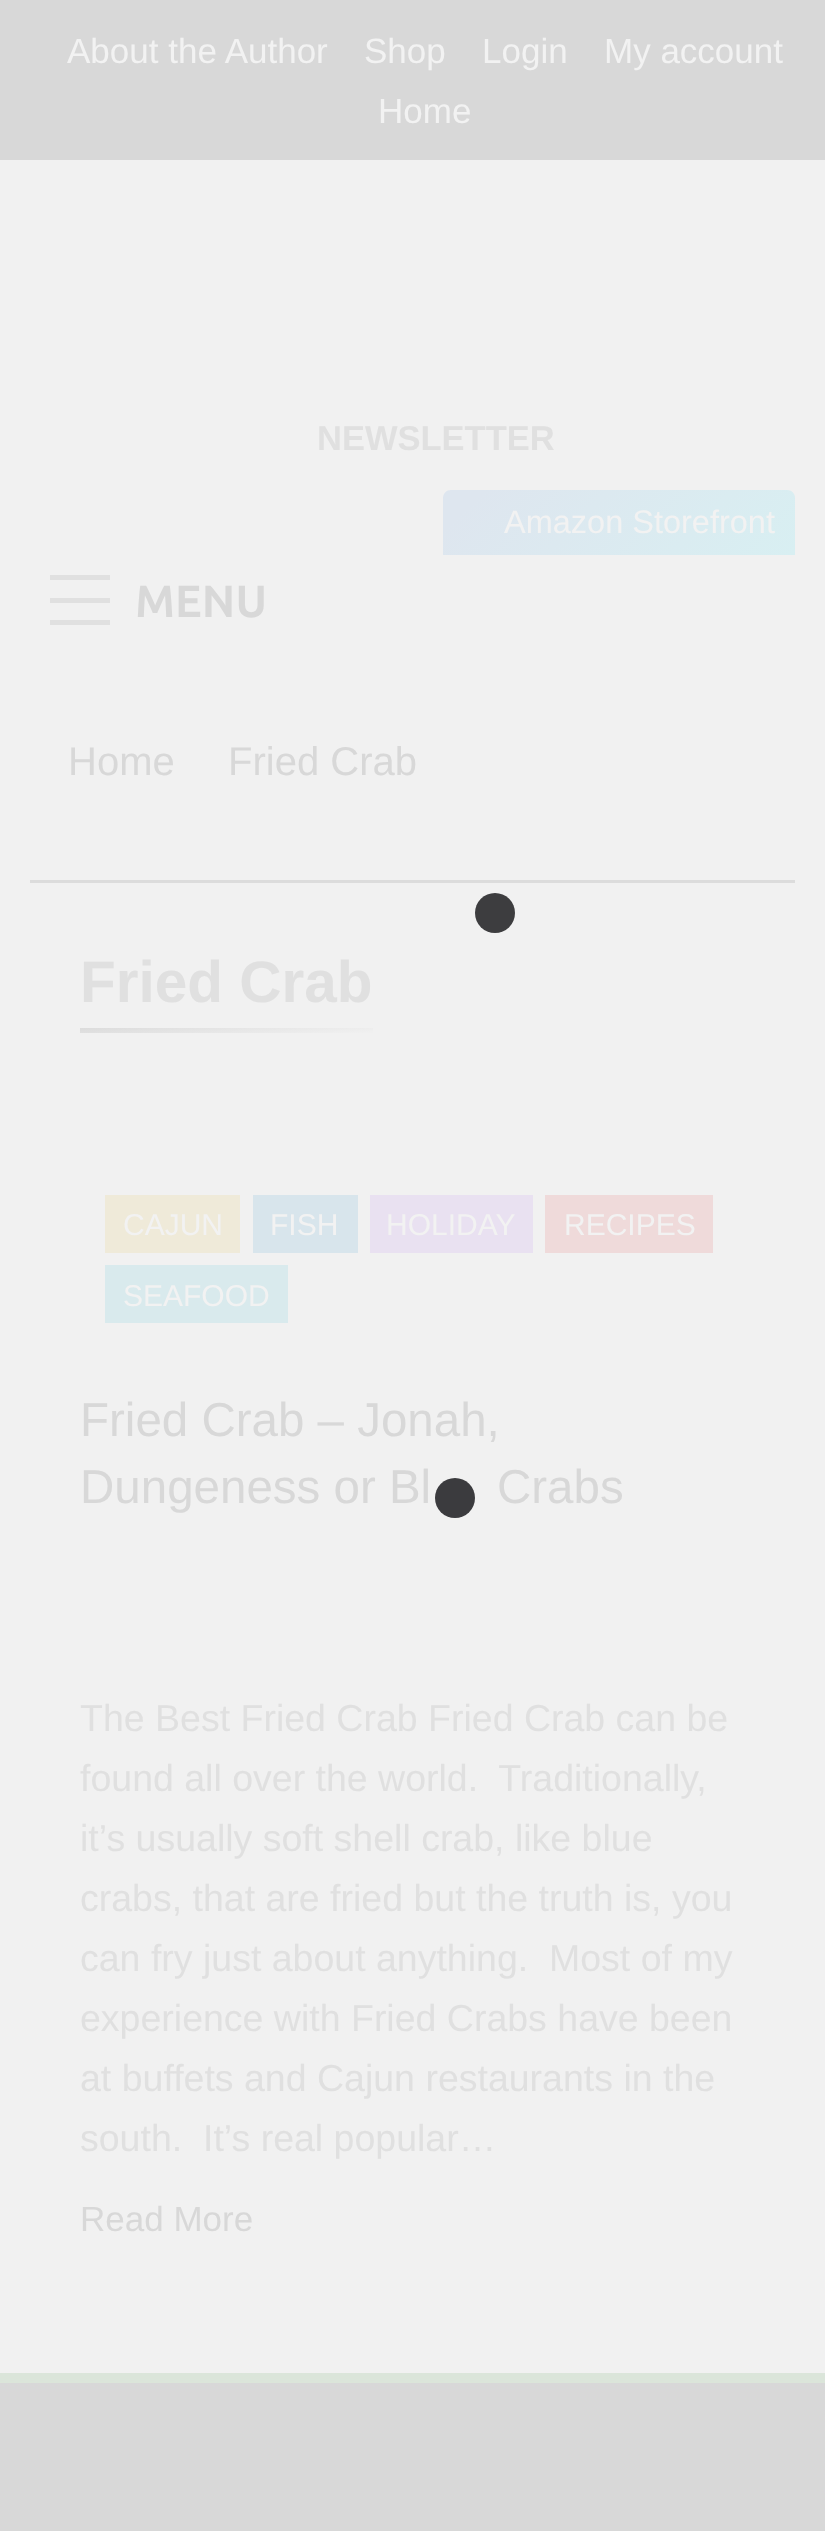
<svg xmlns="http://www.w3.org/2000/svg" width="825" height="2531">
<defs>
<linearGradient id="g1" gradientUnits="userSpaceOnUse" x1="514" y1="418" x2="723" y2="627"><stop offset="0.1" stop-color="#dee6ef"/><stop offset="1" stop-color="#d8eff2"/></linearGradient>
<linearGradient id="g2" gradientUnits="userSpaceOnUse" x1="225" y1="1017" x2="227" y2="1043"><stop offset="0" stop-color="#dcdcdc"/><stop offset="1" stop-color="#f0f0f0"/></linearGradient>
</defs>
<rect width="100%" height="100%" fill="#f1f1f1"/>
<rect width="825" height="160" fill="#d8d8d8"/>
<text x="67" y="63" style="font-family:Liberation Sans;font-size:35px;fill:#f2f2f2">About the Author</text>
<text x="364" y="63" style="font-family:Liberation Sans;font-size:35px;fill:#f2f2f2">Shop</text>
<text x="482" y="63" style="font-family:Liberation Sans;font-size:35px;fill:#f2f2f2">Login</text>
<text x="604" y="63" style="font-family:Liberation Sans;font-size:35px;fill:#f2f2f2">My account</text>
<text x="378" y="123" style="font-family:Liberation Sans;font-size:35px;fill:#f2f2f2">Home</text>
<text x="317" y="450" style="font-family:Liberation Sans;font-size:34.5px;font-weight:bold;fill:#e0e0e0">NEWSLETTER</text>
<path d="M451 490h336c4.5 0 8 3.5 8 8v57h-352v-57c0-4.5 3.5-8 8-8z" fill="url(#g1)"/>
<text x="504" y="533" style="font-family:Liberation Sans;font-size:32.5px;fill:#f2f2f2">Amazon Storefront</text>
<rect x="50" y="575" width="60" height="5" fill="#e0e0e0"/>
<rect x="50" y="598" width="60" height="5" fill="#e0e0e0"/>
<rect x="50" y="620" width="60" height="5" fill="#e0e0e0"/>
<text x="135" y="617" style="font-family:Ubuntu;font-size:45px;font-weight:bold;fill:#d8d8d8">MENU</text>
<text x="68" y="775" style="font-family:Liberation Sans;font-size:40px;fill:#d8d8d8">Home</text>
<text x="228" y="775" style="font-family:Liberation Sans;font-size:40px;fill:#d8d8d8">Fried Crab</text>
<rect x="30" y="880" width="765" height="3" fill="#dcdcdc"/>
<text x="80" y="1002" style="font-family:Liberation Sans;font-size:58.5px;font-weight:bold;fill:#e0e0e0">Fried Crab</text>
<rect x="80" y="1028" width="293" height="5" fill="url(#g2)"/>
<rect x="105" y="1195" width="135" height="58" fill="#efead9"/>
<text x="123" y="1235" style="font-family:Liberation Sans;font-size:30px;fill:#f2f2f2">CAJUN</text>
<rect x="253" y="1195" width="105" height="58" fill="#d8e5ec"/>
<text x="270" y="1235" style="font-family:Liberation Sans;font-size:30px;fill:#f2f2f2">FISH</text>
<rect x="370" y="1195" width="163" height="58" fill="#e9e1f1"/>
<text x="386" y="1235" style="font-family:Liberation Sans;font-size:30px;fill:#f2f2f2">HOLIDAY</text>
<rect x="545" y="1195" width="168" height="58" fill="#efdada"/>
<text x="564" y="1235" style="font-family:Liberation Sans;font-size:30px;fill:#f2f2f2">RECIPES</text>
<rect x="105" y="1265" width="183" height="58" fill="#d9eaed"/>
<text x="123" y="1306" style="font-family:Liberation Sans;font-size:30px;fill:#f2f2f2">SEAFOOD</text>
<text x="80" y="1436" style="font-family:Liberation Sans;font-size:47.5px;fill:#d8d8d8">Fried Crab – Jonah,</text>
<text x="80" y="1503" style="font-family:Liberation Sans;font-size:47.5px;fill:#d8d8d8">Dungeness or Bl</text>
<text x="497" y="1503" style="font-family:Liberation Sans;font-size:47.5px;fill:#d8d8d8">Crabs</text>
<text x="80" y="1731" style="font-family:Liberation Sans;font-size:37.5px;fill:#e0e0e0">The Best Fried Crab Fried Crab can be</text>
<text x="80" y="1791" style="font-family:Liberation Sans;font-size:37.5px;fill:#e0e0e0" xml:space="preserve">found all over the world.  Traditionally,</text>
<text x="80" y="1851" style="font-family:Liberation Sans;font-size:37.5px;fill:#e0e0e0">it’s usually soft shell crab, like blue</text>
<text x="80" y="1911" style="font-family:Liberation Sans;font-size:37.5px;fill:#e0e0e0">crabs, that are fried but the truth is, you</text>
<text x="80" y="1971" style="font-family:Liberation Sans;font-size:37.5px;fill:#e0e0e0" xml:space="preserve">can fry just about anything.  Most of my</text>
<text x="80" y="2031" style="font-family:Liberation Sans;font-size:37.5px;fill:#e0e0e0">experience with Fried Crabs have been</text>
<text x="80" y="2091" style="font-family:Liberation Sans;font-size:37.5px;fill:#e0e0e0">at buffets and Cajun restaurants in the</text>
<text x="80" y="2151" style="font-family:Liberation Sans;font-size:37.5px;fill:#e0e0e0" xml:space="preserve">south.  It’s real popular…</text>
<text x="80" y="2231" style="font-family:Liberation Sans;font-size:35px;fill:#d8d8d8">Read More</text>
<circle cx="495" cy="913" r="20" fill="#3d3d3f"/>
<circle cx="455" cy="1498" r="20" fill="#27272ae6"/>
<rect y="2373" width="825" height="10" fill="#dbe5da"/>
<rect y="2383" width="825" height="148" fill="#d8d8d8"/>
</svg>
